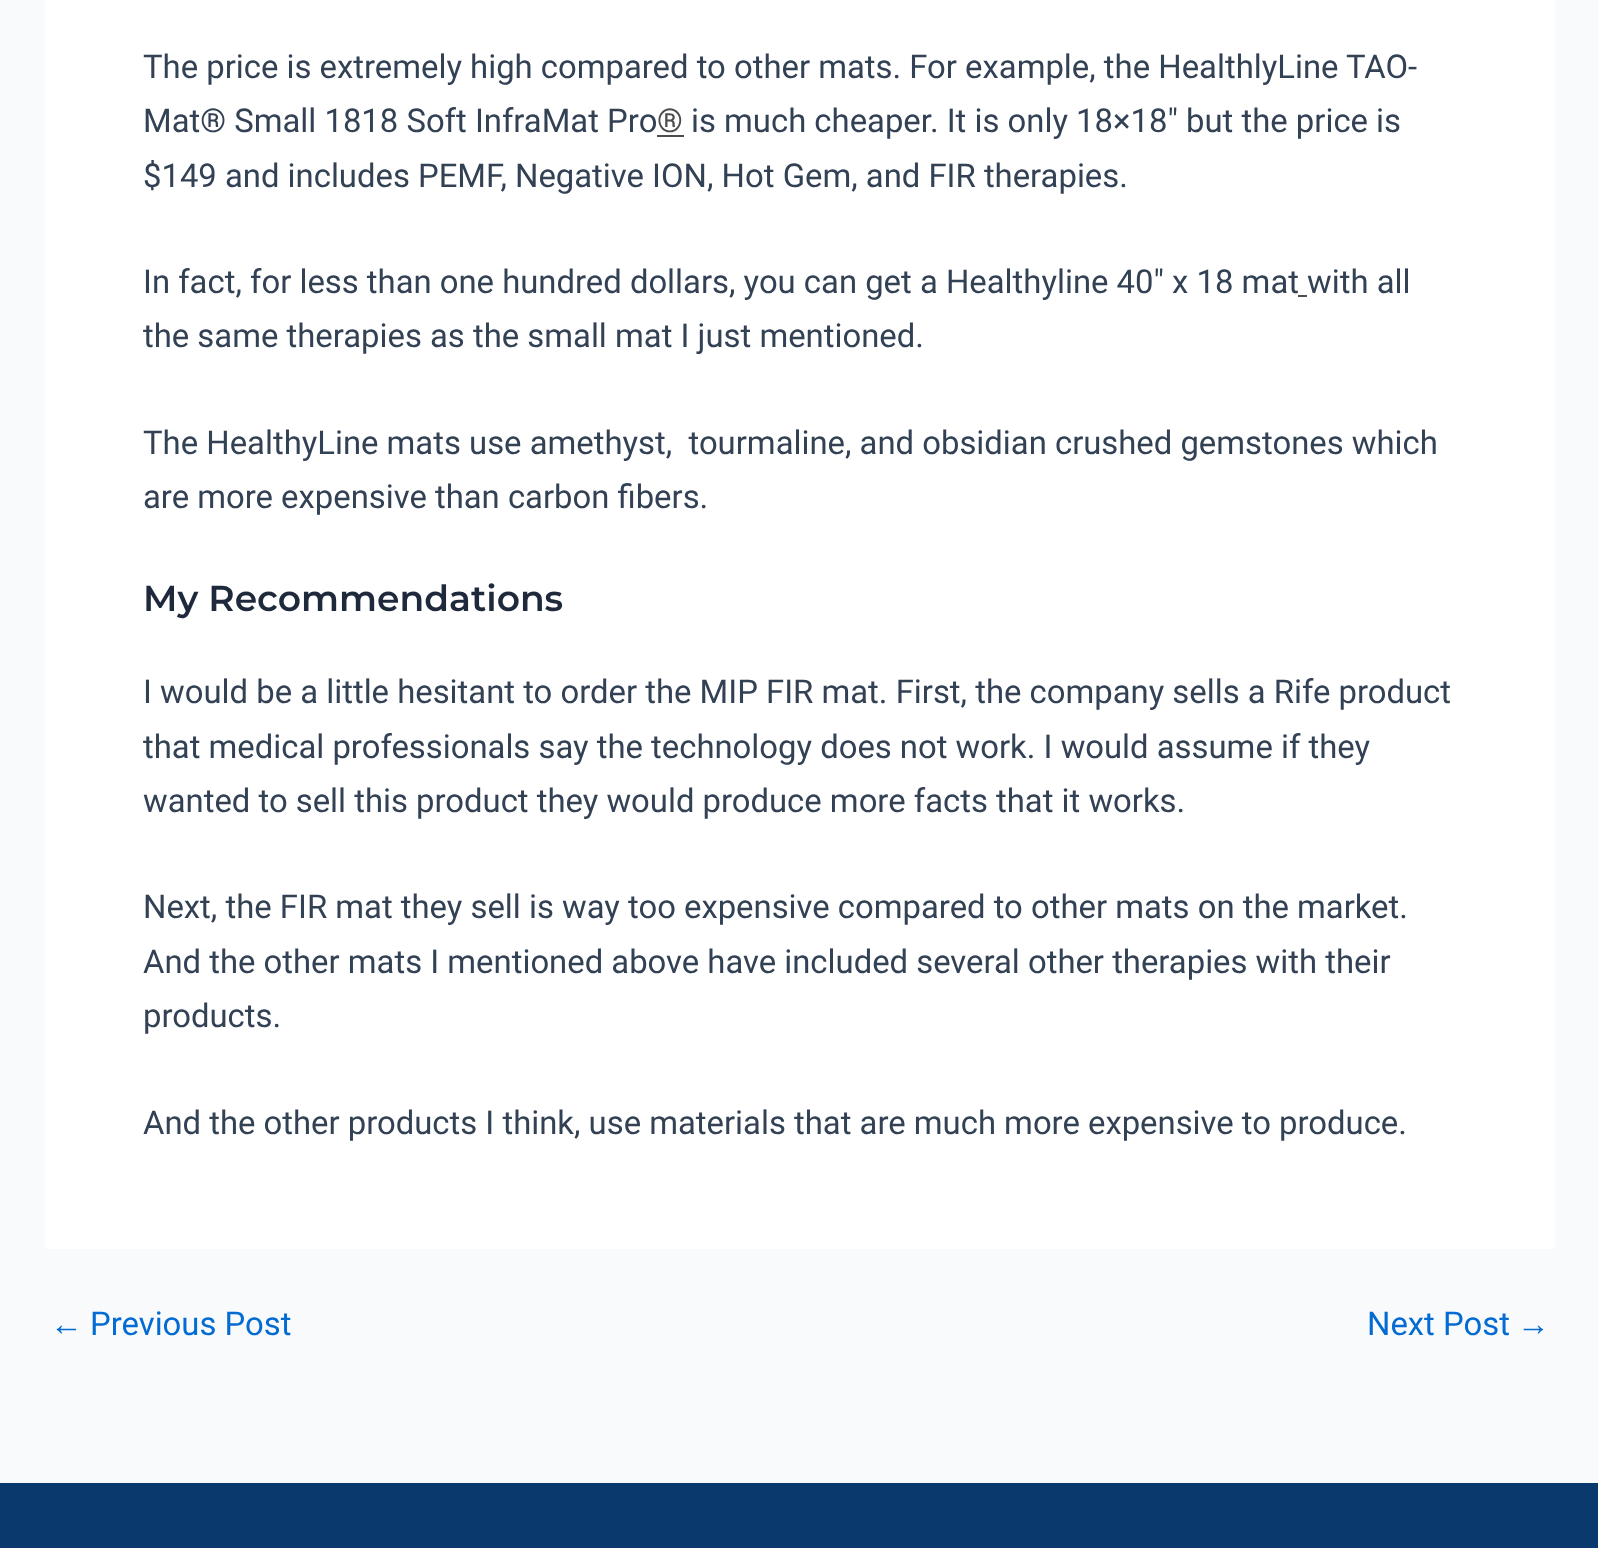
<svg xmlns="http://www.w3.org/2000/svg" width="1598" height="1548">
<rect width="100%" height="100%" fill="#f9fafb"/>
<rect x="45" width="1510" height="1249" fill="#fff"/>
<text x="143" y="78" style="font-family:Roboto;font-size:32.85px;fill:#334155">The price is extremely high compared to other mats. For example, the HealthlyLine TAO-</text>
<text x="143" y="132" style="font-family:Roboto;font-size:32.85px;fill:#334155">Mat® Small 1818 Soft InfraMat Pro</text>
<text x="657" y="132" style="font-family:Roboto;font-size:32.85px;fill:#4d4d4d">®</text>
<rect x="657" y="135" width="27" height="2" fill="#4d4d4d"/>
<text x="691" y="132" style="font-family:Roboto;font-size:32.85px;fill:#334155">is much cheaper. It is only 18×18″ but the price is</text>
<text x="143" y="187" style="font-family:Roboto;font-size:32.85px;fill:#334155">$149 and includes PEMF, Negative ION, Hot Gem, and FIR therapies.</text>
<text x="143" y="293" style="font-family:Roboto;font-size:32.85px;fill:#334155">In fact, for less than one hundred dollars, you can get a Healthyline 40″ x 18 mat with all</text>
<rect x="1298" y="295" width="9" height="2" fill="#4d4d4d"/>
<text x="143" y="347" style="font-family:Roboto;font-size:32.85px;fill:#334155">the same therapies as the small mat I just mentioned.</text>
<text x="143" y="454" style="font-family:Roboto;font-size:32.85px;fill:#334155" xml:space="preserve">The HealthyLine mats use amethyst,  tourmaline, and obsidian crushed gemstones which</text>
<text x="143" y="508" style="font-family:Roboto;font-size:32.85px;fill:#334155">are more expensive than carbon fibers.</text>
<text x="143" y="611" style="font-family:Montserrat;font-size:36.1px;font-weight:600;fill:#1e293b">My Recommendations</text>
<text x="143" y="703" style="font-family:Roboto;font-size:32.85px;fill:#334155">I would be a little hesitant to order the MIP FIR mat. First, the company sells a Rife product</text>
<text x="143" y="758" style="font-family:Roboto;font-size:32.85px;fill:#334155">that medical professionals say the technology does not work. I would assume if they</text>
<text x="143" y="812" style="font-family:Roboto;font-size:32.85px;fill:#334155">wanted to sell this product they would produce more facts that it works.</text>
<text x="143" y="918" style="font-family:Roboto;font-size:32.85px;fill:#334155">Next, the FIR mat they sell is way too expensive compared to other mats on the market.</text>
<text x="143" y="973" style="font-family:Roboto;font-size:32.85px;fill:#334155">And the other mats I mentioned above have included several other therapies with their</text>
<text x="143" y="1027" style="font-family:Roboto;font-size:32.85px;fill:#334155">products.</text>
<text x="143" y="1134" style="font-family:Roboto;font-size:32.85px;fill:#334155">And the other products I think, use materials that are much more expensive to produce.</text>
<text x="50" y="1335" style="font-family:Liberation Sans;font-size:32.85px;fill:#046bd2">←</text>
<text x="90" y="1335" style="font-family:Roboto;font-size:32.85px;fill:#046bd2">Previous Post</text>
<text x="1367" y="1335" style="font-family:Roboto;font-size:32.85px;fill:#046bd2">Next Post</text>
<text x="1517" y="1335" style="font-family:Liberation Sans;font-size:32.85px;fill:#046bd2">→</text>
<rect y="1483" width="1598" height="65" fill="#09396d"/>
</svg>
